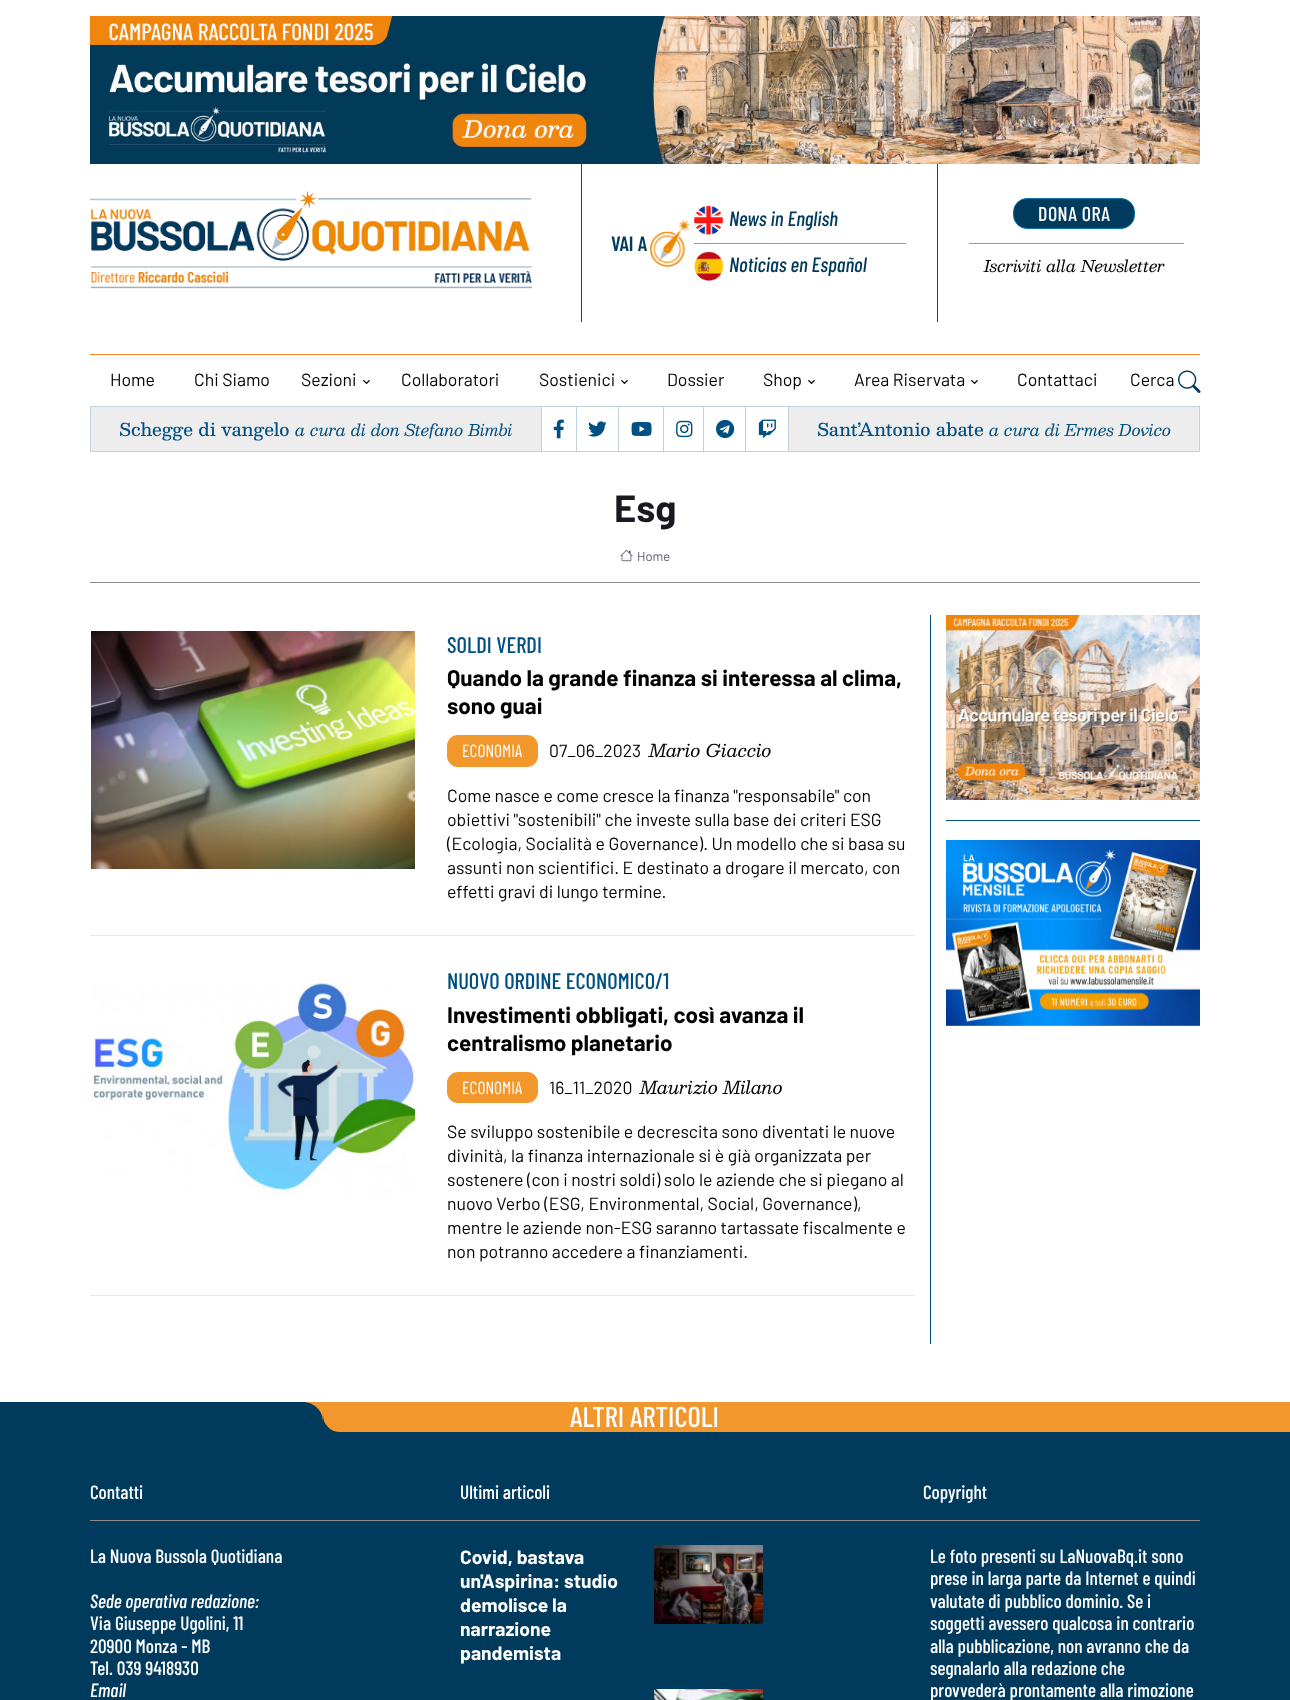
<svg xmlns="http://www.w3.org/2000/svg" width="1290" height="1700">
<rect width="100%" height="100%" fill="#fff"/>
<image x="90" y="16" width="1110" height="148" href="media/1.png"/>
<image x="90" y="191" width="443" height="98" href="media/2.png"/>
<rect x="937" y="164" width="1" height="158" fill="#005083"/>
<image x="694" y="205" width="30" height="30" href="media/3.png"/>
<text x="729" y="226" style="font-family:Barlow Condensed;font-size:20.75px;font-weight:500;font-style:italic;fill:#003b5d">News in English</text>
<rect x="581" y="164" width="1" height="158" fill="#005083"/>
<image x="650" y="219" width="40" height="48" href="media/4.png"/>
<text x="611" y="251" style="font-family:Barlow Condensed;font-size:20.75px;font-weight:600;fill:#003b5d">VAI A</text>
<rect x="694" y="243" width="212" height="1" fill="#ef8623"/>
<image x="694" y="251" width="30" height="30" href="media/5.png"/>
<text x="729" y="272" style="font-family:Barlow Condensed;font-size:20.75px;font-weight:500;font-style:italic;fill:#003b5d">Noticias en Español</text>
<rect x="1013.5" y="198.5" width="121" height="30" rx="13.5" fill="#003b5d" stroke="#0076a9"/>
<text x="1038" y="221" style="font-family:Barlow Condensed;font-size:20px;font-weight:500;letter-spacing:0.5px;fill:#fff">DONA ORA</text>
<rect x="969" y="243" width="215" height="1" fill="#ef8623"/>
<text x="984" y="272" style="font-family:Besley;font-size:16px;font-style:italic;fill:#000">Iscriviti alla Newsletter</text>
<rect x="90" y="354" width="1110" height="1" fill="#ef8623"/>
<text x="110" y="386" style="font-family:Barlow;font-size:17.6px;fill:#000">Home</text>
<text x="194" y="386" style="font-family:Barlow;font-size:17.6px;fill:#000">Chi Siamo</text>
<text x="301" y="386" style="font-family:Barlow;font-size:17.6px;fill:#000">Sezioni</text>
<image x="363" y="380" width="7" height="4" href="media/6.png"/>
<text x="401" y="386" style="font-family:Barlow;font-size:17.6px;fill:#000">Collaboratori</text>
<text x="539" y="386" style="font-family:Barlow;font-size:17.6px;fill:#000">Sostienici</text>
<image x="621" y="380" width="7" height="4" href="media/6.png"/>
<text x="667" y="386" style="font-family:Barlow;font-size:17.6px;fill:#000">Dossier</text>
<text x="763" y="386" style="font-family:Barlow;font-size:17.6px;fill:#000">Shop</text>
<image x="808" y="380" width="7" height="4" href="media/6.png"/>
<text x="854" y="386" style="font-family:Barlow;font-size:17.6px;fill:#000">Area Riservata</text>
<image x="971" y="380" width="7" height="4" href="media/6.png"/>
<text x="1017" y="386" style="font-family:Barlow;font-size:17.6px;fill:#000">Contattaci</text>
<text x="1130" y="386" style="font-family:Barlow;font-size:17.6px;fill:#000">Cerca</text>
<image x="1178" y="370" width="23" height="23" href="media/7.png"/>
<rect x="90.5" y="406.5" width="451" height="45" fill="#ededed" stroke="#c0d2de"/>
<text x="119" y="436" style="font-family:Besley;font-size:17.6px;font-weight:500;fill:#005083">Schegge di vangelo</text>
<text x="295" y="436" style="font-family:Besley;font-size:16px;font-style:italic;fill:#005083">a cura di don Stefano Bimbi</text>
<rect x="542" y="406" width="658" height="1" fill="#c0d2de"/>
<rect x="788" y="406" width="1" height="46" fill="#c0d2de"/>
<rect x="542" y="451" width="247" height="1" fill="#c0d2de"/>
<rect x="576" y="407" width="1" height="44" fill="#c0d2de"/>
<image x="553" y="419" width="11" height="20" href="media/8.png"/>
<rect x="618" y="407" width="1" height="44" fill="#c0d2de"/>
<image x="588" y="421" width="19" height="16" href="media/9.png"/>
<rect x="663" y="407" width="1" height="44" fill="#c0d2de"/>
<image x="631" y="421" width="21" height="15" href="media/10.png"/>
<rect x="703" y="407" width="1" height="44" fill="#c0d2de"/>
<image x="676" y="420" width="17" height="18" href="media/11.png"/>
<rect x="745" y="407" width="1" height="44" fill="#c0d2de"/>
<image x="716" y="419" width="19" height="19" href="media/12.png"/>
<image x="758" y="419" width="18" height="20" href="media/13.png"/>
<rect x="789" y="407" width="410" height="44" fill="#ededed"/>
<rect x="1199" y="406" width="1" height="46" fill="#c0d2de"/>
<rect x="789" y="451" width="411" height="1" fill="#c0d2de"/>
<text x="817" y="436" style="font-family:Besley;font-size:17.6px;font-weight:500;fill:#005083">Sant’Antonio abate</text>
<text x="989" y="436" style="font-family:Besley;font-size:16px;font-style:italic;fill:#005083">a cura di Ermes Dovico</text>
<rect x="90" y="582" width="1110" height="1" fill="#8d8c8a"/>
<text x="614" y="522" style="font-family:Barlow;font-size:38px;font-weight:bold;fill:#191a1f">Esg</text>
<image x="620" y="550" width="13" height="12" href="media/14.png"/>
<text x="637" y="561" style="font-family:Barlow;font-size:13px;fill:#595d69">Home</text>
<image x="91" y="631" width="324" height="238" href="media/15.png"/>
<text x="447" y="653" style="font-family:Barlow Condensed;font-size:22.5px;font-weight:500;fill:#005083">SOLDI VERDI</text>
<text x="447" y="686" style="font-family:Barlow;font-size:22.5px;font-weight:bold;fill:#000">Quando la grande finanza si interessa al clima,</text>
<text x="447" y="714" style="font-family:Barlow;font-size:22.5px;font-weight:bold;fill:#000">sono guai</text>
<rect x="447" y="735" width="91" height="32" rx="11" fill="#f2972c"/>
<text x="462" y="757" style="font-family:Barlow Condensed;font-size:17.6px;fill:#fff">ECONOMIA</text>
<text x="549" y="757" style="font-family:Barlow;font-size:17.6px;fill:#000">07_06_2023</text>
<text x="649" y="757" style="font-family:Besley;font-size:17.6px;font-style:italic;fill:#000">Mario Giaccio</text>
<text x="447" y="802" style="font-family:Barlow;font-size:17.6px;fill:#000">Come nasce e come cresce la finanza "responsabile" con</text>
<text x="447" y="826" style="font-family:Barlow;font-size:17.6px;fill:#000">obiettivi "sostenibili" che investe sulla base dei criteri ESG</text>
<text x="447" y="850" style="font-family:Barlow;font-size:17.6px;fill:#000">(Ecologia, Socialità e Governance). Un modello che si basa su</text>
<text x="447" y="874" style="font-family:Barlow;font-size:17.6px;fill:#000">assunti non scientifici. E destinato a drogare il mercato, con</text>
<text x="447" y="898" style="font-family:Barlow;font-size:17.6px;fill:#000">effetti gravi di lungo termine.</text>
<rect x="90" y="935" width="825" height="1" fill="#e8e8e9"/>
<image x="91" y="983" width="324" height="212" href="media/16.png"/>
<text x="447" y="989" style="font-family:Barlow Condensed;font-size:22.5px;font-weight:500;fill:#005083">NUOVO ORDINE ECONOMICO/1</text>
<text x="447" y="1023" style="font-family:Barlow;font-size:22.5px;font-weight:bold;fill:#000">Investimenti obbligati, così avanza il</text>
<text x="447" y="1051" style="font-family:Barlow;font-size:22.5px;font-weight:bold;fill:#000">centralismo planetario</text>
<rect x="447" y="1072" width="91" height="31" rx="11" fill="#f2972c"/>
<text x="462" y="1094" style="font-family:Barlow Condensed;font-size:17.6px;fill:#fff">ECONOMIA</text>
<text x="549" y="1094" style="font-family:Barlow;font-size:17.6px;fill:#000">16_11_2020</text>
<text x="640" y="1094" style="font-family:Besley;font-size:17.6px;font-style:italic;fill:#000">Maurizio Milano</text>
<text x="447" y="1138" style="font-family:Barlow;font-size:17.6px;fill:#000">Se sviluppo sostenibile e decrescita sono diventati le nuove</text>
<text x="447" y="1162" style="font-family:Barlow;font-size:17.6px;fill:#000">divinità, la finanza internazionale si è già organizzata per</text>
<text x="447" y="1186" style="font-family:Barlow;font-size:17.6px;fill:#000">sostenere (con i nostri soldi) solo le aziende che si piegano al</text>
<text x="447" y="1210" style="font-family:Barlow;font-size:17.6px;fill:#000">nuovo Verbo (ESG, Environmental, Social, Governance),</text>
<text x="447" y="1234" style="font-family:Barlow;font-size:17.6px;fill:#000">mentre le aziende non-ESG saranno tartassate fiscalmente e</text>
<text x="447" y="1258" style="font-family:Barlow;font-size:17.6px;fill:#000">non potranno accedere a finanziamenti.</text>
<rect x="90" y="1295" width="825" height="1" fill="#e8e8e9"/>
<rect x="930" y="615" width="1" height="729" fill="#005083"/>
<rect x="946" y="820" width="254" height="1" fill="#005083"/>
<image x="946" y="615" width="254" height="185" href="media/17.png"/>
<image x="946" y="840" width="254" height="186" href="media/18.png"/>
<rect y="1432" width="1290" height="268" fill="#003b5d"/>
<rect x="303" y="1402" width="20" height="20" fill="#f2972c"/>
<path d="M0 1402h303c11 0 20 9 20 20v10h-323z" fill="#003b5d"/>
<rect x="323" y="1415" width="17" height="17" fill="#003b5d"/>
<path d="M323 1402h967v30h-950c-9.5 0-17-7.5-17-17z" fill="#f2972c"/>
<text x="570" y="1427" style="font-family:Barlow Condensed;font-size:28.75px;font-weight:500;fill:#fff">ALTRI ARTICOLI</text>
<text x="90" y="1499" style="font-family:Barlow Condensed;font-size:19.25px;font-weight:500;fill:#fff">Contatti</text>
<rect x="90" y="1520" width="1110" height="1" fill="#8d8c8a"/>
<text x="90" y="1563" style="font-family:Barlow Condensed;font-size:19.25px;font-weight:500;fill:#fff">La Nuova Bussola Quotidiana</text>
<text x="90" y="1608" style="font-family:Barlow Condensed;font-size:19.25px;font-weight:500;font-style:italic;fill:#fff">Sede operativa redazione:</text>
<text x="90" y="1630" style="font-family:Barlow Condensed;font-size:19.25px;font-weight:500;fill:#fff">Via Giuseppe Ugolini, 11</text>
<text x="90" y="1653" style="font-family:Barlow Condensed;font-size:19.25px;font-weight:500;fill:#fff">20900 Monza - MB</text>
<text x="90" y="1675" style="font-family:Barlow Condensed;font-size:19.25px;font-weight:500;fill:#fff">Tel. 039 9418930</text>
<text x="90" y="1697" style="font-family:Barlow Condensed;font-size:19.25px;font-weight:500;font-style:italic;fill:#fff">Email</text>
<text x="460" y="1499" style="font-family:Barlow Condensed;font-size:19.25px;font-weight:500;fill:#fff">Ultimi articoli</text>
<text x="460" y="1564" style="font-family:Barlow;font-size:19.25px;font-weight:bold;fill:#fff">Covid, bastava</text>
<text x="460" y="1588" style="font-family:Barlow;font-size:19.25px;font-weight:bold;fill:#fff">un'Aspirina: studio</text>
<text x="460" y="1612" style="font-family:Barlow;font-size:19.25px;font-weight:bold;fill:#fff">demolisce la</text>
<text x="460" y="1636" style="font-family:Barlow;font-size:19.25px;font-weight:bold;fill:#fff">narrazione</text>
<text x="460" y="1660" style="font-family:Barlow;font-size:19.25px;font-weight:bold;fill:#fff">pandemista</text>
<image x="654" y="1545" width="109" height="79" href="media/19.png"/>
<image x="654" y="1689" width="109" height="11" href="media/20.png"/>
<text x="923" y="1499" style="font-family:Barlow Condensed;font-size:19.25px;font-weight:500;fill:#fff">Copyright</text>
<text x="930" y="1563" style="font-family:Barlow Condensed;font-size:19.25px;font-weight:500;fill:#fff">Le foto presenti su LaNuovaBq.it sono</text>
<text x="930" y="1585" style="font-family:Barlow Condensed;font-size:19.25px;font-weight:500;fill:#fff">prese in larga parte da Internet e quindi</text>
<text x="930" y="1608" style="font-family:Barlow Condensed;font-size:19.25px;font-weight:500;fill:#fff">valutate di pubblico dominio. Se i</text>
<text x="930" y="1630" style="font-family:Barlow Condensed;font-size:19.25px;font-weight:500;fill:#fff">soggetti avessero qualcosa in contrario</text>
<text x="930" y="1653" style="font-family:Barlow Condensed;font-size:19.25px;font-weight:500;fill:#fff">alla pubblicazione, non avranno che da</text>
<text x="930" y="1675" style="font-family:Barlow Condensed;font-size:19.25px;font-weight:500;fill:#fff">segnalarlo alla redazione che</text>
<text x="930" y="1697" style="font-family:Barlow Condensed;font-size:19.25px;font-weight:500;fill:#fff">provvederà prontamente alla rimozione</text>
</svg>
